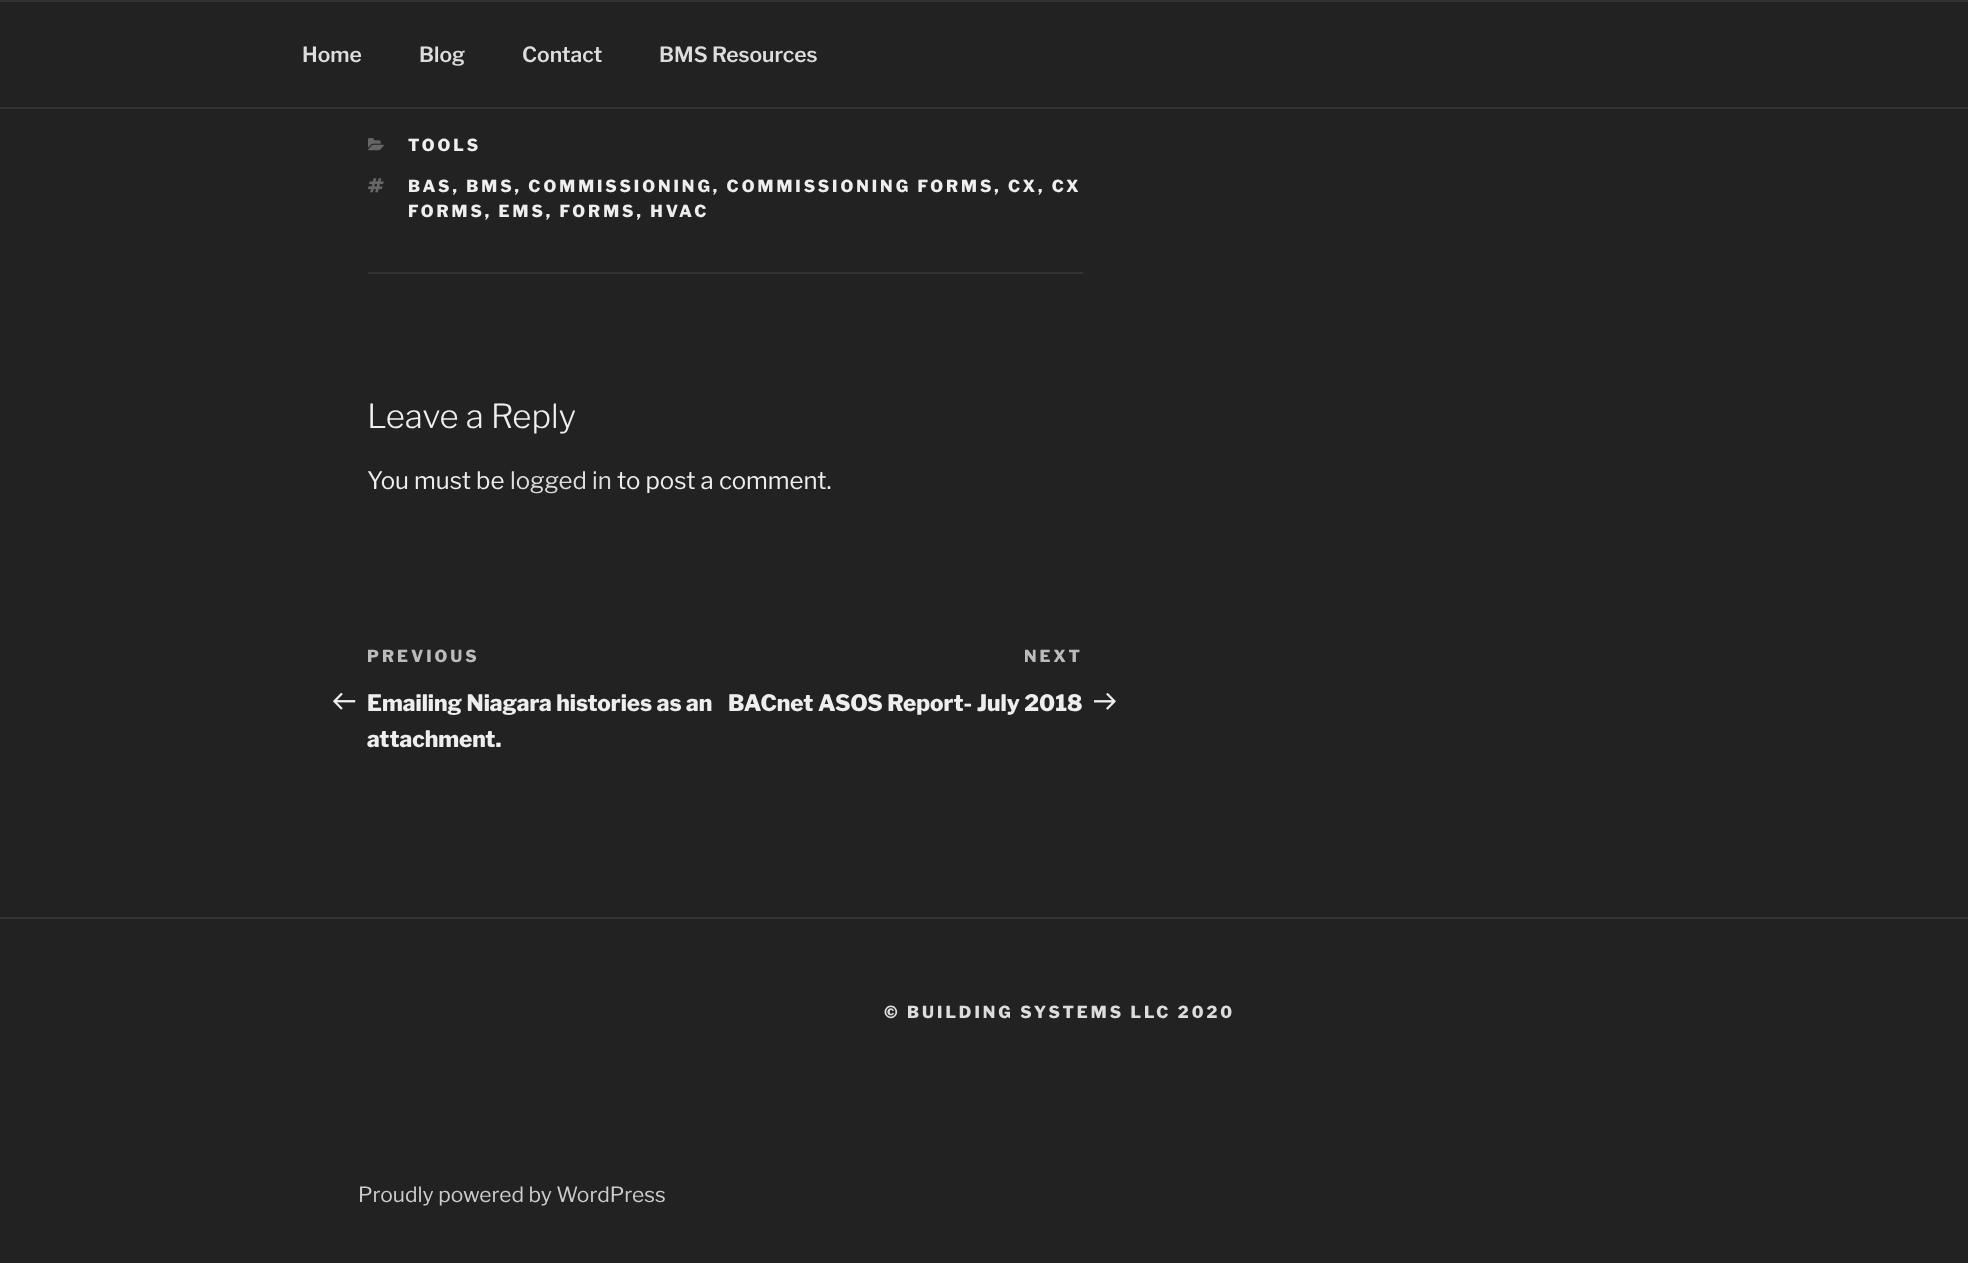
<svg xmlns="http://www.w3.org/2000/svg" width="1968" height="1263">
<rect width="100%" height="100%" fill="#222"/>
<rect width="1968" height="2" fill="#333"/>
<rect y="107" width="1968" height="2" fill="#333"/>
<text x="302" y="62" style="font-family:'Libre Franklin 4';font-size:21px;font-weight:100;fill:#ddd">Home</text>
<text x="419" y="62" style="font-family:'Libre Franklin 4';font-size:21px;font-weight:100;fill:#ddd">Blog</text>
<text x="522" y="62" style="font-family:'Libre Franklin 4';font-size:21px;font-weight:100;fill:#ddd">Contact</text>
<text x="659" y="62" style="font-family:'Libre Franklin 4';font-size:21px;font-weight:100;fill:#ddd">BMS Resources</text>
<rect x="368" y="272" width="715" height="2" fill="#333"/>
<image x="368" y="138" width="16" height="13" href="media/1.png"/>
<text x="408" y="151" style="font-family:Libre Franklin;font-size:16.5px;font-weight:100;letter-spacing:3px;fill:#eee">TOOLS</text>
<image x="368" y="178" width="16" height="15" href="media/2.png"/>
<text x="408" y="192" style="font-family:Libre Franklin;font-size:16.5px;font-weight:100;letter-spacing:3px;fill:#eee">BAS, BMS, COMMISSIONING, COMMISSIONING FORMS, CX, CX</text>
<text x="408" y="217" style="font-family:Libre Franklin;font-size:16.5px;font-weight:100;letter-spacing:3px;fill:#eee">FORMS, EMS, FORMS, HVAC</text>
<text x="367" y="428" style="font-family:'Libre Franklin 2';font-size:33px;font-weight:100;fill:#eee">Leave a Reply</text>
<text x="367" y="489" style="font-family:'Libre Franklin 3';font-size:24px;font-weight:100;fill:#eee">You must be</text>
<text x="510" y="489" style="font-family:'Libre Franklin 3';font-size:24px;font-weight:100;fill:#ddd">logged in</text>
<text x="617" y="489" style="font-family:'Libre Franklin 3';font-size:24px;font-weight:100;fill:#eee">to post a comment.</text>
<text x="367" y="662" style="font-family:Libre Franklin;font-size:16.5px;font-weight:100;letter-spacing:3px;fill:#bbb">PREVIOUS</text>
<image x="333" y="692" width="23" height="18" href="media/3.png"/>
<text x="367" y="711" style="font-family:Libre Franklin;font-size:22.5px;font-weight:100;fill:#eee">Emailing Niagara histories as an</text>
<text x="367" y="747" style="font-family:Libre Franklin;font-size:22.5px;font-weight:100;fill:#eee">attachment.</text>
<text x="1024" y="662" style="font-family:Libre Franklin;font-size:16.5px;font-weight:100;letter-spacing:3px;fill:#bbb">NEXT</text>
<text x="728" y="711" style="font-family:Libre Franklin;font-size:22.5px;font-weight:100;fill:#eee">BACnet ASOS Report- July 2018</text>
<image x="1094" y="692" width="22" height="18" href="media/4.png"/>
<rect y="917" width="1968" height="2" fill="#333"/>
<text x="884" y="1018" style="font-family:Libre Franklin;font-size:16.5px;font-weight:100;letter-spacing:3px;fill:#ddd">© BUILDING SYSTEMS LLC 2020</text>
<text x="358" y="1202" style="font-family:'Libre Franklin 3';font-size:21px;font-weight:100;fill:#ccc">Proudly powered by WordPress</text>
</svg>
